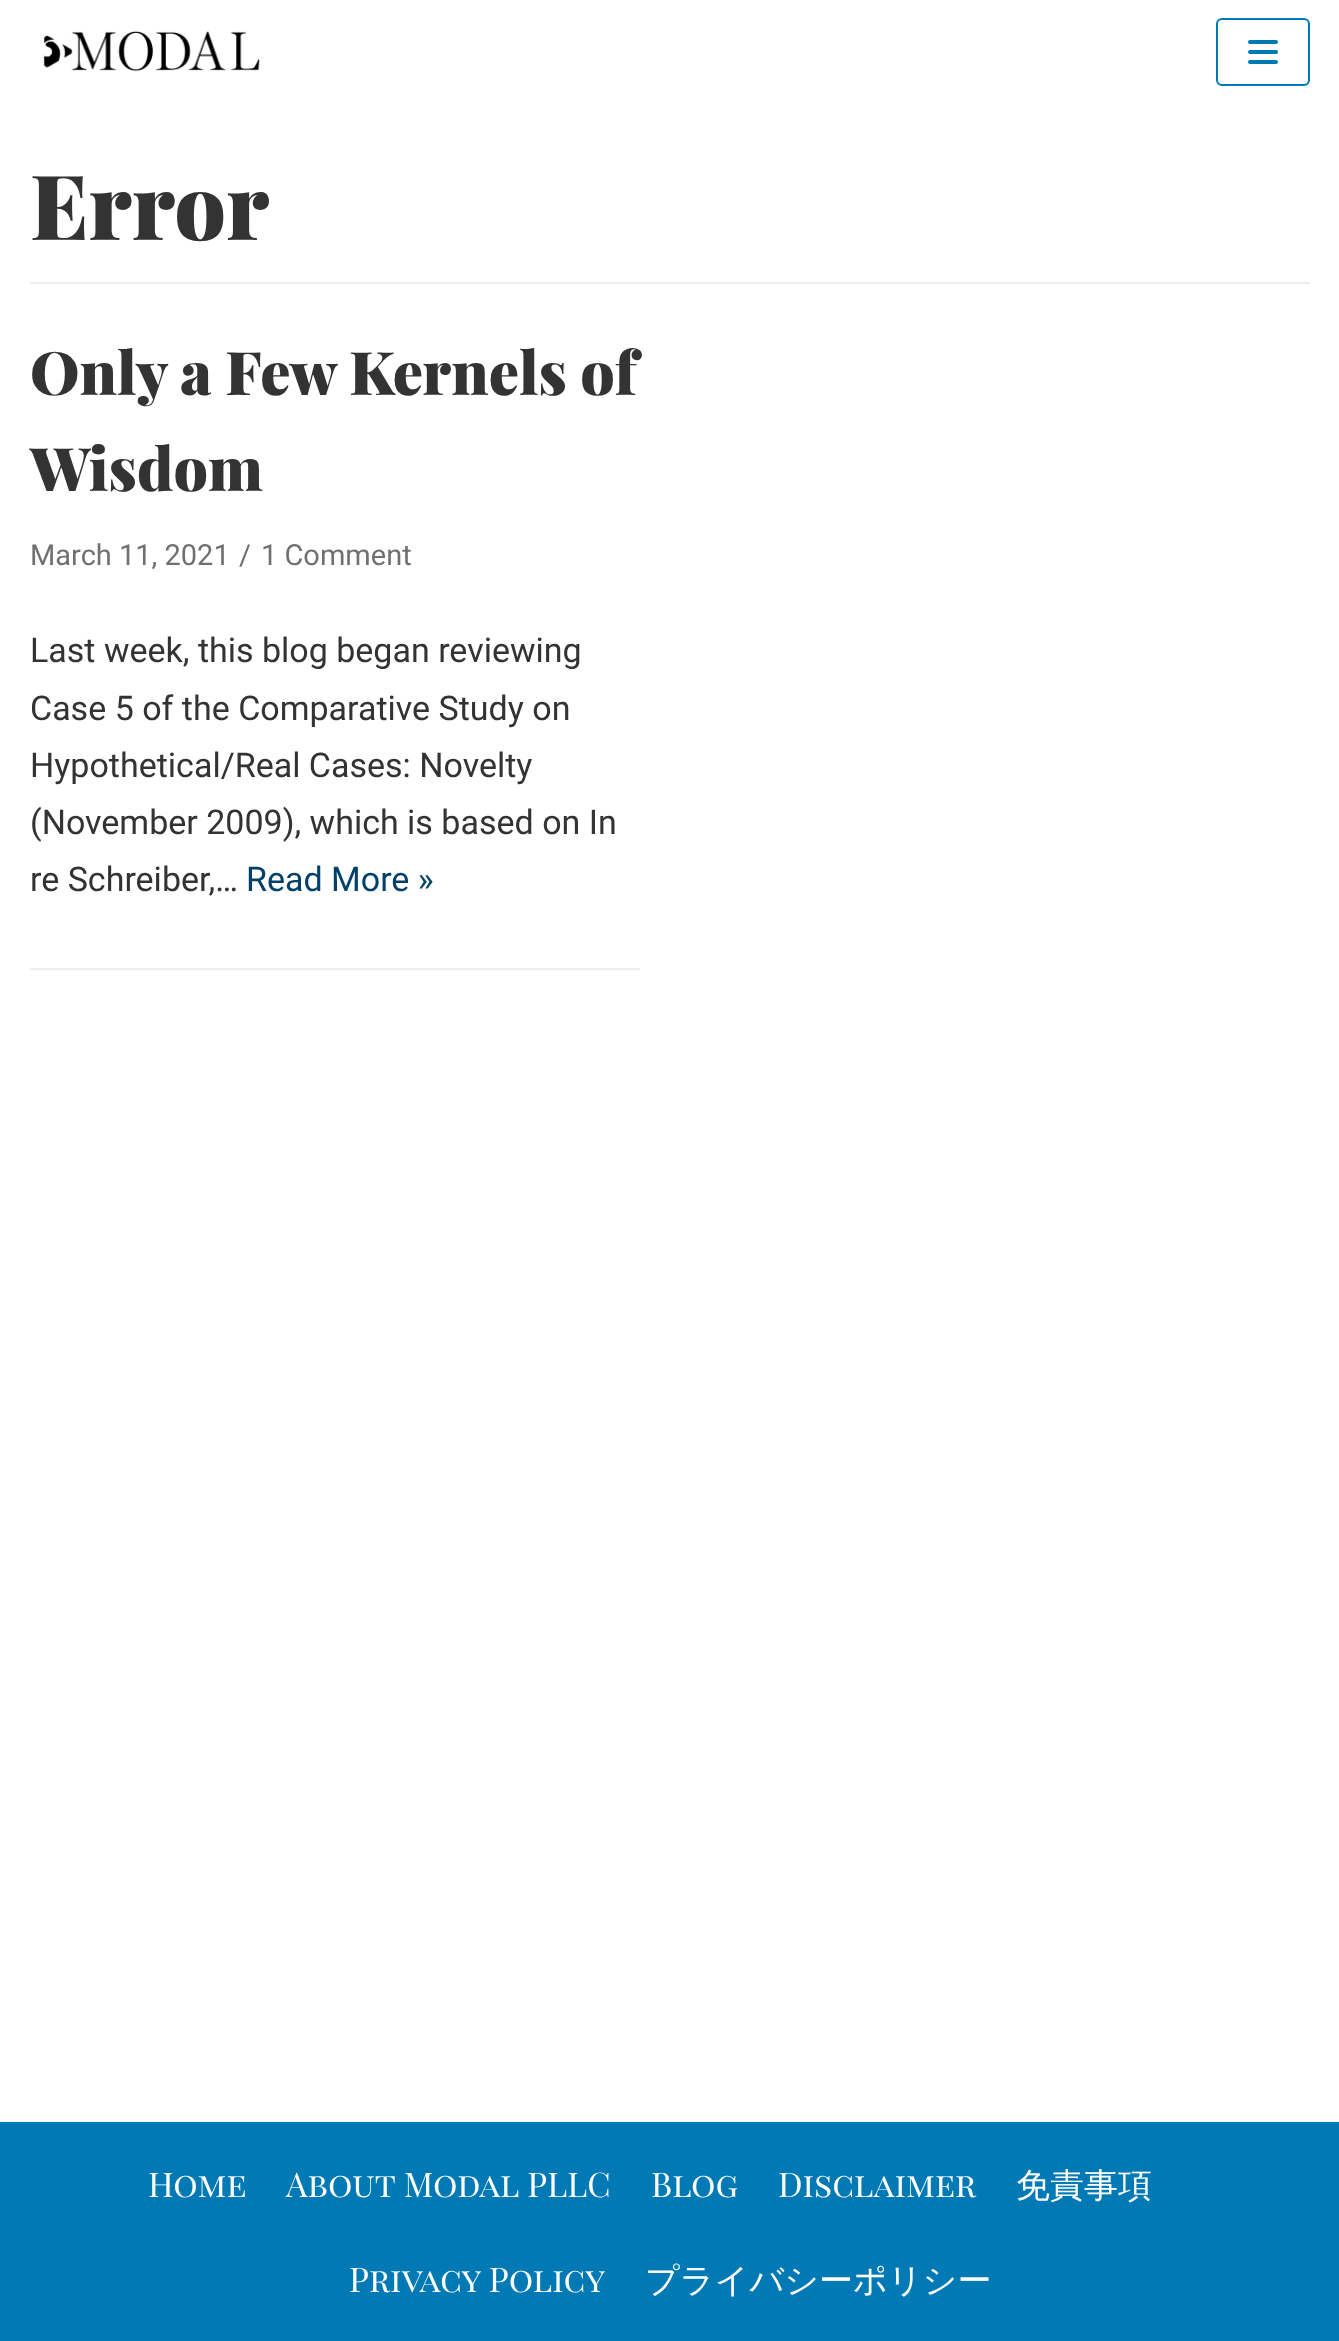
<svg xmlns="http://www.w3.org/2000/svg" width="1339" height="2341">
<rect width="100%" height="100%" fill="#fff"/>
<image x="43" y="31" width="217" height="41" href="media/1.png"/>
<rect x="1217" y="19" width="92" height="66" rx="5" fill="none" stroke="#0079b5" stroke-width="2"/>
<rect x="1248" y="40" width="30" height="4" rx="2" fill="#0079b5"/>
<rect x="1248" y="50" width="30" height="4" rx="2" fill="#0079b5"/>
<rect x="1248" y="60" width="30" height="4" rx="2" fill="#0079b5"/>
<rect x="30" y="282" width="1280" height="2" fill="#ededed"/>
<text x="30" y="240" style="font-family:Playfair Display;font-size:90px;font-weight:900;fill:#333">Error</text>
<rect x="30" y="968" width="610" height="2" fill="#ededed"/>
<text x="30" y="395" style="font-family:Playfair Display;font-size:60px;font-weight:900;fill:#333">Only a Few Kernels of</text>
<text x="30" y="491" style="font-family:Playfair Display;font-size:60px;font-weight:900;fill:#333">Wisdom</text>
<text x="30" y="565" style="font-family:Roboto;font-size:29px;fill:#707070">March 11, 2021</text>
<text x="239" y="565" style="font-family:Roboto;font-size:29px;fill:#707070">/</text>
<text x="261" y="565" style="font-family:Roboto;font-size:29px;fill:#707070">1 Comment</text>
<text x="30" y="662" style="font-family:Roboto;font-size:34px;fill:#333">Last week, this blog began reviewing</text>
<text x="30" y="720" style="font-family:Roboto;font-size:34px;fill:#333">Case 5 of the Comparative Study on</text>
<text x="30" y="777" style="font-family:Roboto;font-size:34px;fill:#333">Hypothetical/Real Cases: Novelty</text>
<text x="30" y="834" style="font-family:Roboto;font-size:34px;fill:#333">(November 2009), which is based on In</text>
<text x="30" y="891" style="font-family:Roboto;font-size:34px;fill:#333">re Schreiber,…</text>
<text x="246" y="891" style="font-family:Roboto;font-size:34px;fill:#014169">Read More »</text>
<rect y="2122" width="1339" height="219" fill="#0079b5"/>
<text x="148" y="2197" style="font-family:Playfair Display SC;font-size:34px;fill:#fff">Home</text>
<text x="286" y="2197" style="font-family:Playfair Display SC;font-size:34px;fill:#fff">About Modal PLLC</text>
<text x="651" y="2197" style="font-family:Playfair Display SC;font-size:34px;fill:#fff">Blog</text>
<text x="778" y="2197" style="font-family:Playfair Display SC;font-size:34px;fill:#fff">Disclaimer</text>
<text x="1016" y="2197" style="font-family:WenQuanYi Zen Hei;font-size:34px;font-weight:500;fill:#fff">免責事項</text>
<text x="349" y="2292" style="font-family:Playfair Display SC;font-size:34px;fill:#fff">Privacy Policy</text>
<text x="645" y="2292" style="font-family:WenQuanYi Zen Hei;font-size:34px;font-weight:500;fill:#fff">プライバシーポリシー</text>
</svg>
